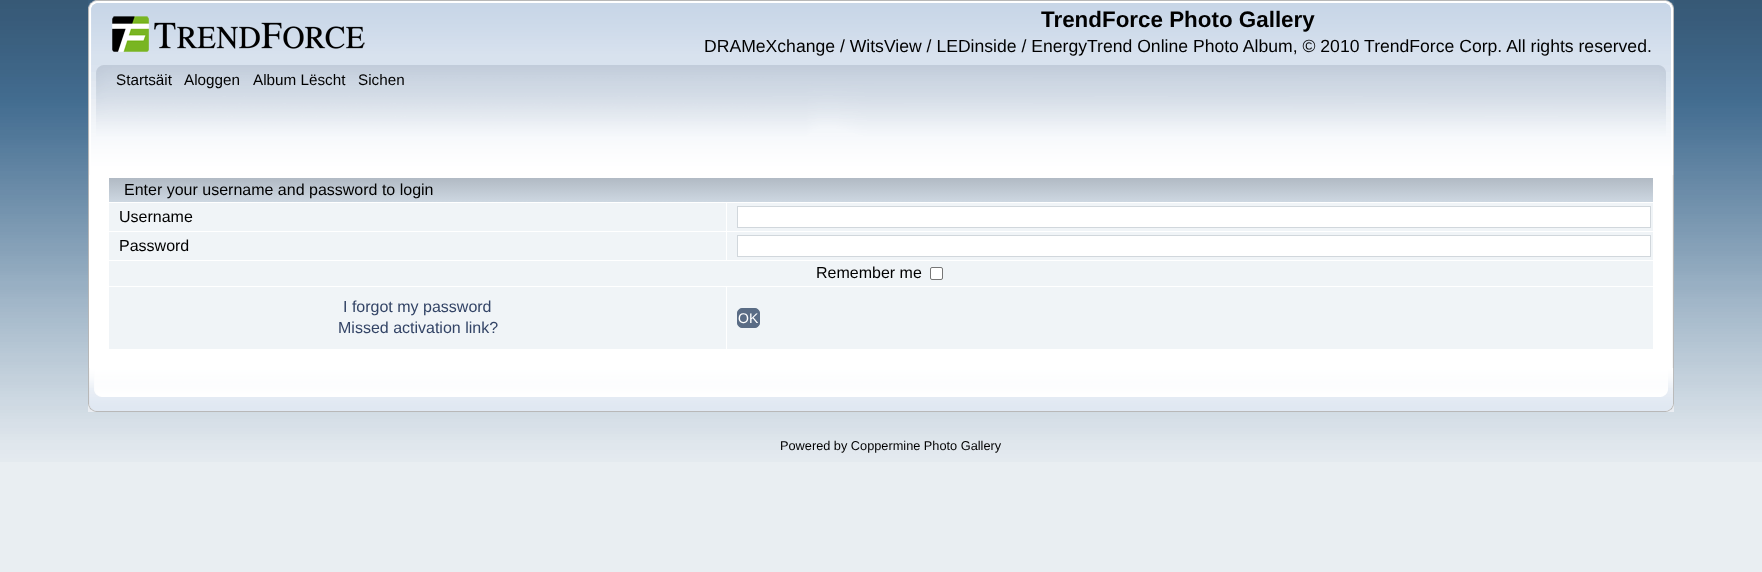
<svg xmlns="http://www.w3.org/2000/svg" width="1762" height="572">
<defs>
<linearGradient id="g1" gradientUnits="userSpaceOnUse" x1="881" y1="178" x2="881" y2="202"><stop offset="0" stop-color="#b1bac4"/><stop offset="1" stop-color="#cdd7e1"/></linearGradient>
</defs>
<rect width="100%" height="100%" fill="#e9eef2"/>
<image x="0" y="0" width="1762" height="462" href="media/1.png"/>
<image x="88" y="0" width="1578" height="65" href="media/2.png"/>
<image x="1666" y="0" width="8" height="65" href="media/3.png"/>
<image x="112" y="16" width="253" height="36" href="media/4.png"/>
<text x="1041" y="27" style="font-family:Liberation Sans;font-size:22.4px;font-weight:bold;fill:#000">TrendForce Photo Gallery</text>
<text x="704" y="52" style="font-family:Liberation Sans;font-size:17.6px;fill:#000">DRAMeXchange / WitsView / LEDinside / EnergyTrend Online Photo Album, © 2010 TrendForce Corp. All rights reserved.</text>
<image x="88" y="65" width="1571" height="110" href="media/5.png"/>
<image x="1659" y="65" width="15" height="110" href="media/6.png"/>
<text x="116" y="85" style="font-family:Liberation Sans;font-size:15.25px;fill:#000">Startsäit</text>
<text x="184" y="85" style="font-family:Liberation Sans;font-size:15.25px;fill:#000">Aloggen</text>
<text x="253" y="85" style="font-family:Liberation Sans;font-size:15.25px;fill:#000">Album Lëscht</text>
<text x="358" y="85" style="font-family:Liberation Sans;font-size:15.25px;fill:#000">Sichen</text>
<rect x="89" y="175" width="1583" height="193" fill="#fff"/>
<rect x="88" y="175" width="1" height="193" fill="#b7b7b7"/>
<image x="1672" y="175" width="2" height="193" href="media/7.png"/>
<rect x="109" y="178" width="1544" height="24" fill="url(#g1)"/>
<text x="124" y="195" style="font-family:Liberation Sans;font-size:16px;fill:#000">Enter your username and password to login</text>
<rect x="109" y="203" width="617" height="28" fill="#f0f4f7"/>
<text x="119" y="222" style="font-family:Liberation Sans;font-size:16px;fill:#000">Username</text>
<rect x="727" y="203" width="926" height="28" fill="#f0f4f7"/>
<rect x="737.5" y="206.5" width="913" height="21" fill="#fff" stroke="#d1d7dc"/>
<rect x="109" y="232" width="617" height="28" fill="#f0f4f7"/>
<text x="119" y="251" style="font-family:Liberation Sans;font-size:16px;fill:#000">Password</text>
<rect x="727" y="232" width="926" height="28" fill="#f0f4f7"/>
<rect x="737.5" y="235.5" width="913" height="21" fill="#fff" stroke="#d1d7dc"/>
<rect x="109" y="261" width="1544" height="25" fill="#f0f4f7"/>
<text x="816" y="278" style="font-family:Liberation Sans;font-size:16px;fill:#000">Remember me</text>
<rect x="930.5" y="267.5" width="12" height="12" rx="1.5" fill="#fff" stroke="#767676"/>
<rect x="109" y="287" width="617" height="62" fill="#f0f4f7"/>
<text x="343" y="312" style="font-family:Liberation Sans;font-size:16px;fill:#346">I forgot my password</text>
<text x="338" y="333" style="font-family:Liberation Sans;font-size:16px;fill:#346">Missed activation link?</text>
<rect x="727" y="287" width="926" height="62" fill="#f0f4f7"/>
<rect x="737.5" y="308.5" width="22" height="19" rx="4.5" fill="#5a6c85" stroke="#5a6c85"/>
<text x="738" y="323" style="font-family:Liberation Sans;font-size:14px;fill:#fff">OK</text>
<image x="88" y="368" width="1573" height="44" href="media/8.png"/>
<image x="1661" y="368" width="13" height="44" href="media/9.png"/>
<text x="780" y="450" style="font-family:Liberation Sans;font-size:12.75px;fill:#000">Powered by Coppermine Photo Gallery</text>
</svg>
